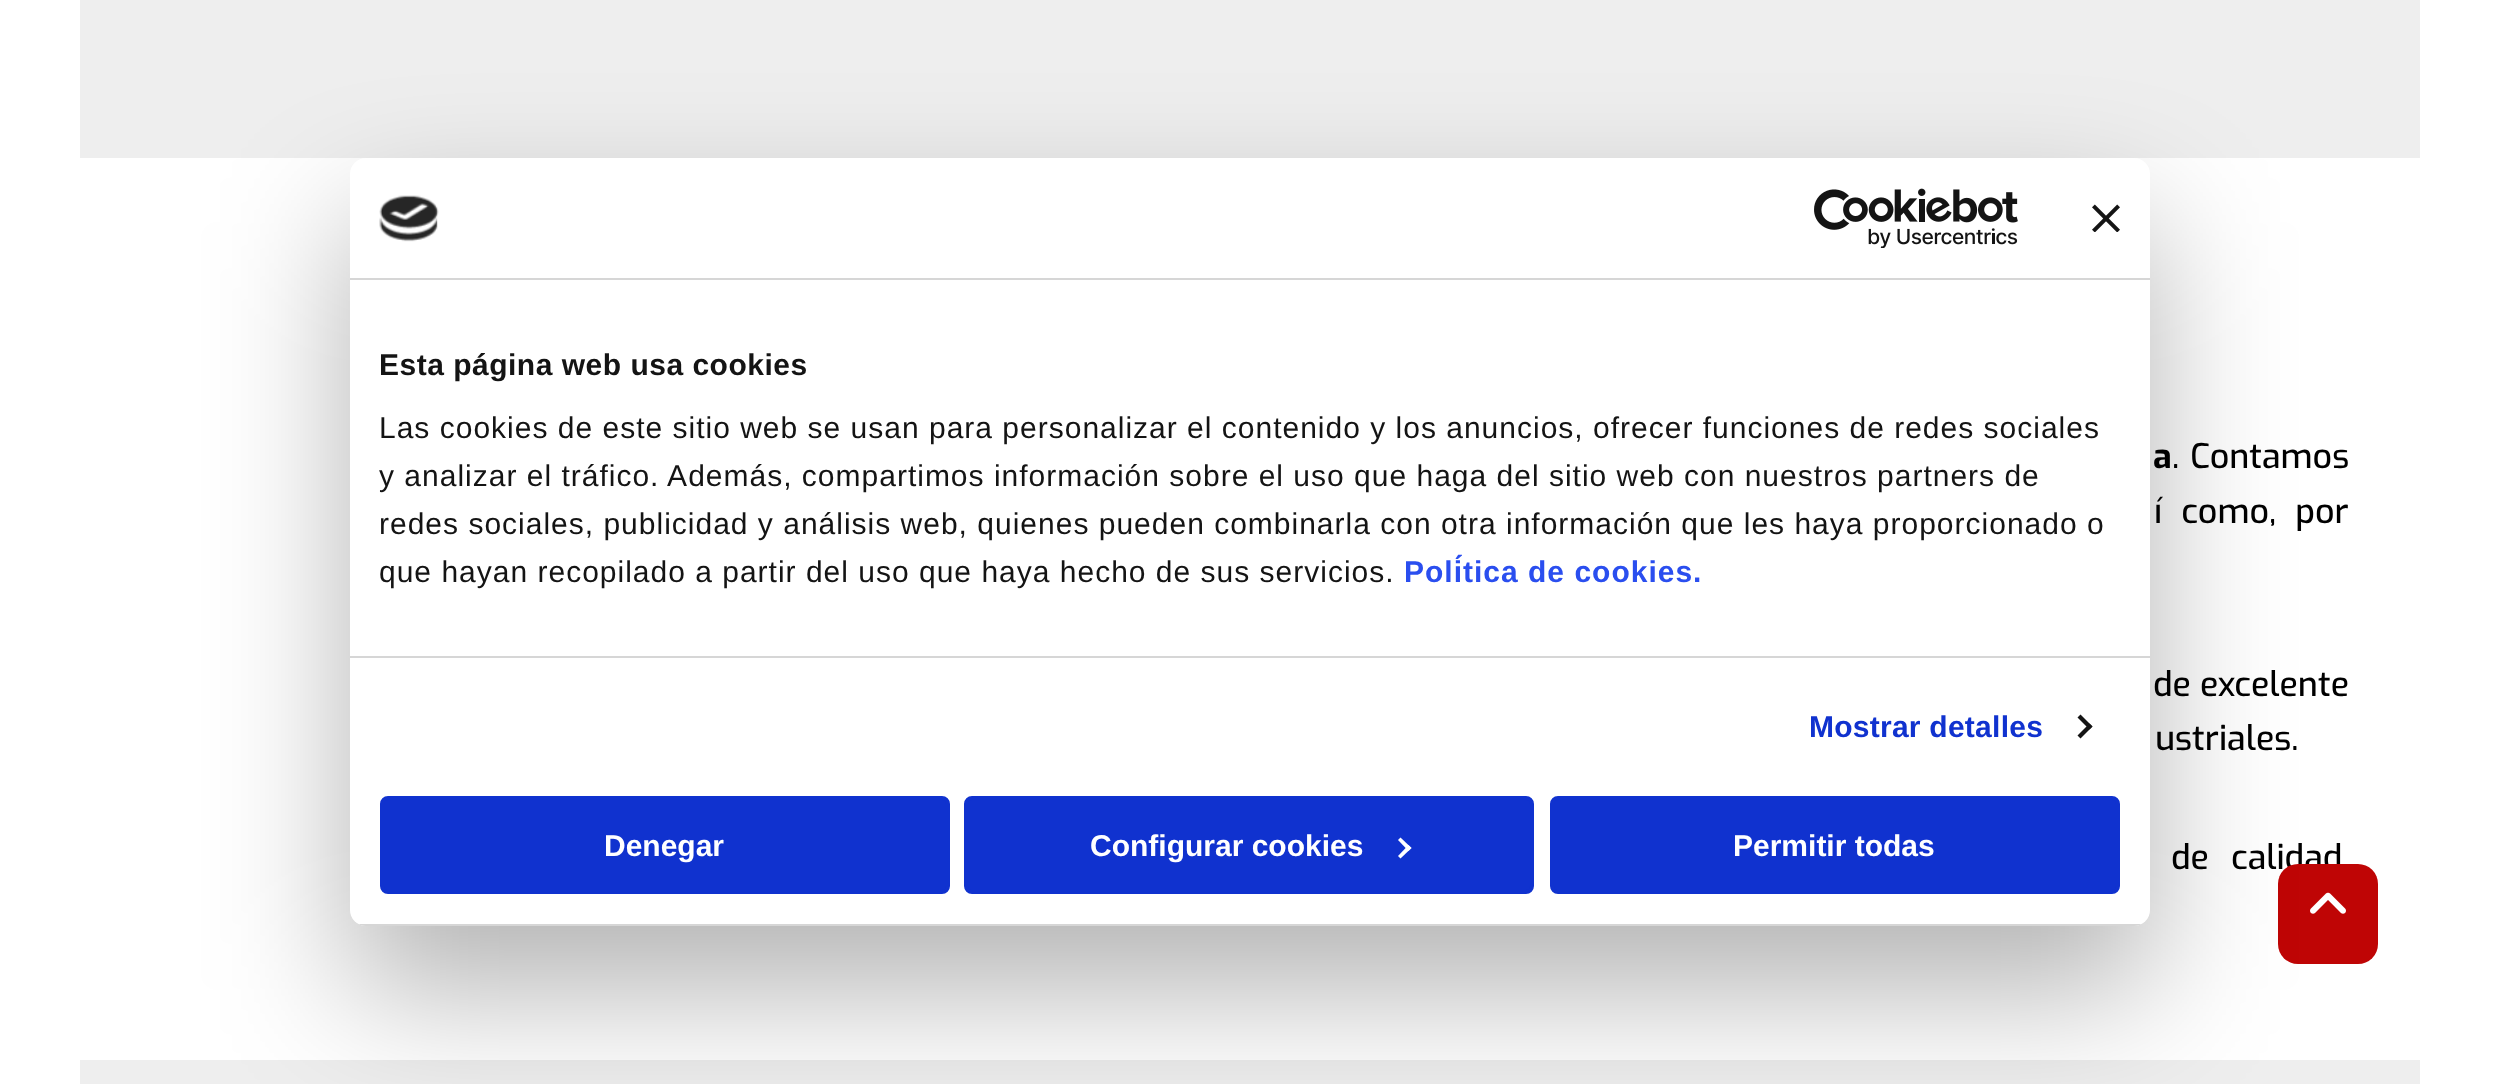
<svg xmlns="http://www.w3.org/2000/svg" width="2498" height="1084">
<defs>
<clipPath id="clip1"><rect x="350" y="158" width="1800" height="768" rx="16"/></clipPath>
</defs>
<rect width="100%" height="100%" fill="#fff"/>
<rect x="80" width="2340" height="158" fill="#eee"/>
<rect x="80" y="1060" width="2340" height="24" fill="#eee"/>
<text x="2171" y="869" word-spacing="13" style="font-family:Exo;font-size:34px;font-weight:500;fill:#000">de calidad</text>
<rect x="2278" y="864" width="100" height="100" rx="20" fill="#bf0505"/>
<image x="2310" y="892" width="36" height="22" href="media/4.png"/>
<rect x="350" y="222" width="1800" height="768" rx="16" fill="#0000004d" filter="blur(68px)"/>
<rect x="350" y="158" width="1800" height="768" rx="16" fill="#fff"/>
<rect x="350" y="278" width="1800" height="2" fill="#d6d6d6"/>
<image x="379" y="195" width="60" height="47" href="media/1.png"/>
<image x="1814" y="188" width="204" height="60" href="media/2.png"/>
<image x="2092" y="204" width="28" height="28" href="media/3.png"/>
<rect x="350" y="656" width="1800" height="2" fill="#d6d6d6"/>
<text x="379" y="375" style="font-family:Liberation Sans;font-size:30px;font-weight:bold;letter-spacing:0.5px;fill:#141414">Esta página web usa cookies</text>
<text x="379" y="438" style="font-family:Liberation Sans;font-size:30px;letter-spacing:1px;fill:#141414">Las cookies de este sitio web se usan para personalizar el contenido y los anuncios, ofrecer funciones de redes sociales</text>
<text x="379" y="486" style="font-family:Liberation Sans;font-size:30px;letter-spacing:1px;fill:#141414">y analizar el tráfico. Además, compartimos información sobre el uso que haga del sitio web con nuestros partners de</text>
<text x="379" y="534" style="font-family:Liberation Sans;font-size:30px;letter-spacing:1px;fill:#141414">redes sociales, publicidad y análisis web, quienes pueden combinarla con otra información que les haya proporcionado o</text>
<text x="379" y="582" style="font-family:Liberation Sans;font-size:30px;letter-spacing:1px;fill:#141414">que hayan recopilado a partir del uso que haya hecho de sus servicios.</text>
<text x="1404" y="582" style="font-family:Liberation Sans;font-size:30px;font-weight:bold;letter-spacing:1px;fill:#2a4eef">Política de cookies.</text>
<text x="1809" y="737" style="font-family:Liberation Sans;font-size:30px;font-weight:bold;letter-spacing:0.25px;fill:#1032cf">Mostrar detalles</text>
<path d="M2080.5 714.5l12 12l-3 3l-12-12z" fill="#141414"/>
<path d="M2089.5 723.5l3 3l-12 12l-3-3z" fill="#141414"/>
<g clip-path="url(#clip1)">
<rect x="350" y="924" width="1800" height="2" fill="#d6d6d6"/>
</g>
<rect x="382" y="798" width="566" height="94" rx="6" fill="#1032cf" stroke="#1032cf" stroke-width="4"/>
<text x="604" y="856" style="font-family:Liberation Sans;font-size:30px;font-weight:bold;fill:#fff">Denegar</text>
<rect x="966" y="798" width="566" height="94" rx="6" fill="#1032cf" stroke="#1032cf" stroke-width="4"/>
<text x="1090" y="856" style="font-family:Liberation Sans;font-size:30px;font-weight:bold;fill:#fff">Configurar cookies</text>
<path d="M1400.5 837.5l11 10.5l-3 3l-10.5-11z" fill="#fff"/>
<path d="M1408.5 845l3 3l-11 10.5l-2.5-2.5z" fill="#fff"/>
<rect x="1552" y="798" width="566" height="94" rx="6" fill="#1032cf" stroke="#1032cf" stroke-width="4"/>
<text x="1733" y="856" style="font-family:Liberation Sans;font-size:30px;font-weight:bold;fill:#fff">Permitir todas</text>
<text x="2153" y="468" word-spacing="2" style="font-family:Exo;font-size:34px;font-weight:bold;fill:#000">a</text>
<text x="2172" y="468" word-spacing="2" style="font-family:Exo;font-size:34px;font-weight:500;fill:#000">. Contamos</text>
<text x="2154" y="523" word-spacing="10" style="font-family:Exo;font-size:34px;font-weight:500;fill:#000">í como, por</text>
<text x="2153" y="696" style="font-family:Exo;font-size:34px;font-weight:500;fill:#000">de excelente</text>
<text x="2155" y="750" style="font-family:Exo;font-size:34px;font-weight:500;fill:#000">ustriales.</text>
</svg>
